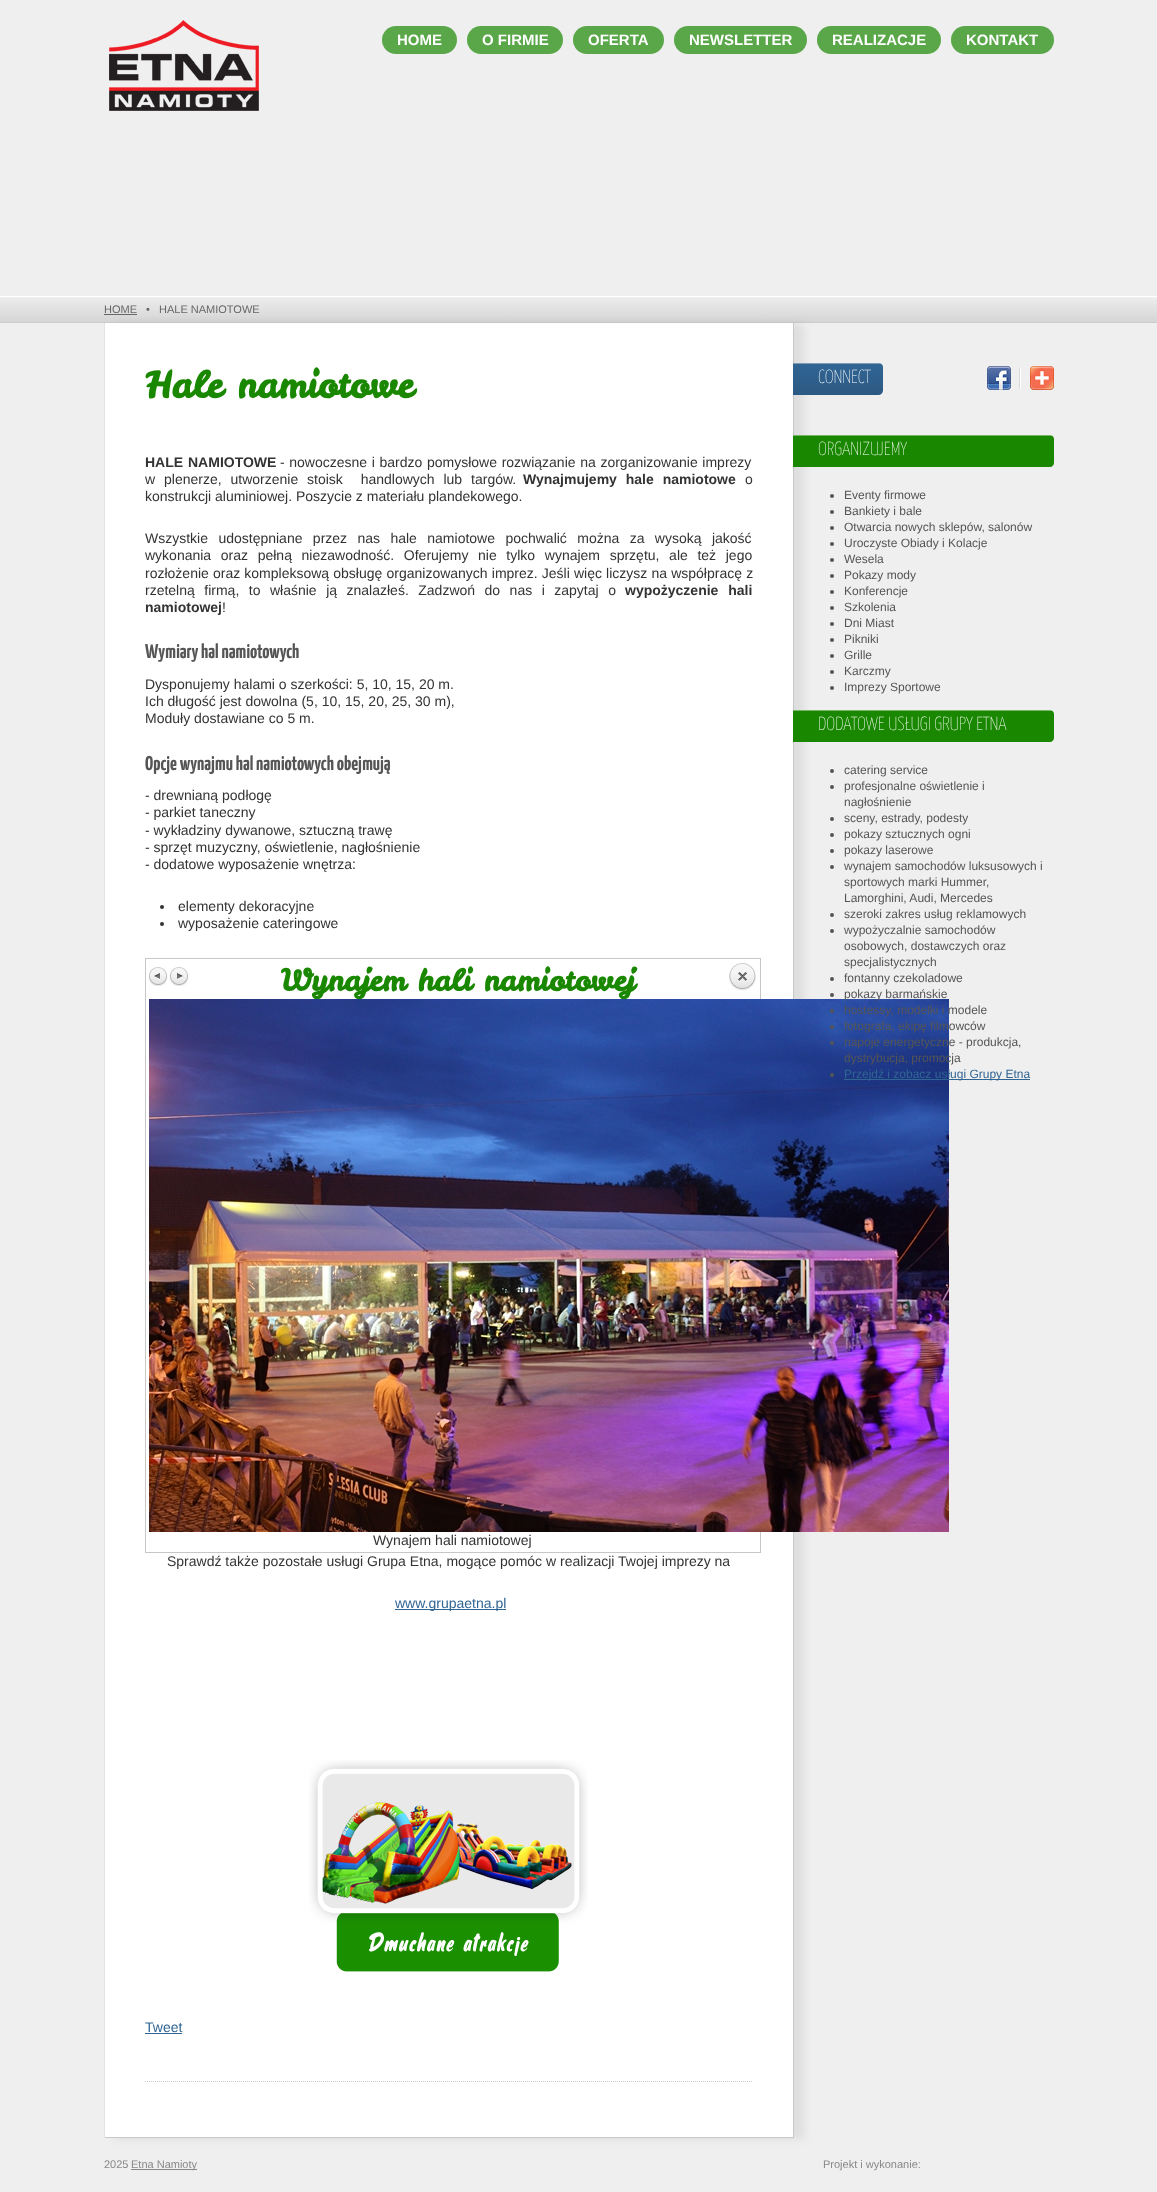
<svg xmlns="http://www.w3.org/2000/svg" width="1157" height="2192">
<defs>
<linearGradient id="g1" gradientUnits="userSpaceOnUse" x1="0" y1="297" x2="0" y2="322"><stop offset="0" stop-color="#ededed"/><stop offset="1" stop-color="#d5d5d5"/></linearGradient>
<clipPath id="clip1"><path d="M793 363h86c2 0 4 2 4 4v24c0 2-2 4-4 4h-86z"/></clipPath>
<linearGradient id="g2" gradientUnits="userSpaceOnUse" x1="793" y1="333" x2="793" y2="364"><stop offset="0" stop-color="#316594"/><stop offset="1" stop-color="#2c5983"/></linearGradient>
<linearGradient id="g3" gradientUnits="userSpaceOnUse" x1="793" y1="364" x2="793" y2="395"><stop offset="0" stop-color="#316594"/><stop offset="1" stop-color="#2c5983"/></linearGradient>
</defs>
<rect width="100%" height="100%" fill="#efefef"/>
<image x="109" y="20" width="150" height="91" href="media/1.png"/>
<rect x="382" y="26" width="75" height="28" rx="14" fill="#59a748"/>
<text x="397" y="45" style="font-family:Liberation Sans;font-size:15px;font-weight:bold;fill:#fff">HOME</text>
<rect x="467" y="26" width="96" height="28" rx="14" fill="#59a748"/>
<text x="482" y="45" style="font-family:Liberation Sans;font-size:15px;font-weight:bold;fill:#fff">O FIRMIE</text>
<rect x="573" y="26" width="91" height="28" rx="14" fill="#59a748"/>
<text x="588" y="45" style="font-family:Liberation Sans;font-size:15px;font-weight:bold;fill:#fff">OFERTA</text>
<rect x="674" y="26" width="133" height="28" rx="14" fill="#59a748"/>
<text x="689" y="45" style="font-family:Liberation Sans;font-size:15px;font-weight:bold;fill:#fff">NEWSLETTER</text>
<rect x="817" y="26" width="124" height="28" rx="14" fill="#59a748"/>
<text x="832" y="45" style="font-family:Liberation Sans;font-size:15px;font-weight:bold;fill:#fff">REALIZACJE</text>
<rect x="951" y="26" width="103" height="28" rx="14" fill="#59a748"/>
<text x="966" y="45" style="font-family:Liberation Sans;font-size:15px;font-weight:bold;fill:#fff">KONTAKT</text>
<rect y="298" width="1157" height="24" fill="url(#g1)"/>
<rect y="296" width="1157" height="1" fill="#fff"/>
<rect y="322" width="1157" height="1" fill="#ccc"/>
<text x="104" y="313" style="font-family:Liberation Sans;font-size:11px;fill:#666">HOME</text>
<rect x="104" y="314" width="33" height="1" fill="#666"/>
<text x="146" y="313" style="font-family:Liberation Sans;font-size:11px;fill:#666">•</text>
<text x="159" y="313" style="font-family:Liberation Sans;font-size:11px;fill:#666">HALE NAMIOTOWE</text>
<rect x="114" y="324" width="690" height="1815" fill="#00000012" filter="blur(5px)"/>
<rect x="105" y="323" width="688" height="1814" fill="#fff"/>
<rect x="793" y="323" width="1" height="1815" fill="#c8c8c8"/>
<rect x="104" y="2137" width="690" height="1" fill="#c8c8c8"/>
<rect x="104" y="323" width="1" height="1815" fill="#e4e4e4"/>
<text x="145" y="398" style="font-family:Leckerli One;font-size:37px;font-weight:bold;fill:#198800">Hale namiotowe</text>
<text x="145" y="467" word-spacing="1" style="font-family:Liberation Sans;font-size:14px;font-weight:bold;fill:#333">HALE NAMIOTOWE</text>
<text x="280" y="467" word-spacing="0.75" style="font-family:Liberation Sans;font-size:14px;fill:#333">- nowoczesne i bardzo pomysłowe rozwiązanie na zorganizowanie imprezy</text>
<text x="145" y="484" word-spacing="5" style="font-family:Liberation Sans;font-size:14px;fill:#333" xml:space="preserve">w plenerze, utworzenie stoisk  handlowych lub targów.</text>
<text x="523" y="484" word-spacing="5" style="font-family:Liberation Sans;font-size:14px;font-weight:bold;fill:#333">Wynajmujemy hale namiotowe</text>
<text x="745" y="484" style="font-family:Liberation Sans;font-size:14px;fill:#333">o</text>
<text x="145" y="501" style="font-family:Liberation Sans;font-size:14px;fill:#333">konstrukcji aluminiowej. Poszycie z materiału plandekowego.</text>
<text x="145" y="543" word-spacing="6.5" style="font-family:Liberation Sans;font-size:14px;fill:#333">Wszystkie udostępniane przez nas hale namiotowe pochwalić można za wysoką jakość</text>
<text x="145" y="560" word-spacing="5.75" style="font-family:Liberation Sans;font-size:14px;fill:#333">wykonania oraz pełną niezawodność. Oferujemy nie tylko wynajem sprzętu, ale też jego</text>
<text x="145" y="578" word-spacing="0.25" style="font-family:Liberation Sans;font-size:14px;fill:#333">rozłożenie oraz kompleksową obsługę organizowanych imprez. Jeśli więc liczysz na współpracę z</text>
<text x="145" y="595" word-spacing="5.6" style="font-family:Liberation Sans;font-size:14px;fill:#333">rzetelną firmą, to właśnie ją znalazłeś. Zadzwoń do nas i zapytaj o</text>
<text x="625" y="595" word-spacing="6" style="font-family:Liberation Sans;font-size:14px;font-weight:bold;fill:#333">wypożyczenie hali</text>
<text x="145" y="612" style="font-family:Liberation Sans;font-size:14px;font-weight:bold;fill:#333">namiotowej</text>
<text x="222" y="612" style="font-family:Liberation Sans;font-size:14px;fill:#333">!</text>
<text x="145" y="658" style="font-family:Yanone Kaffeesatz;font-size:20px;font-weight:bold;fill:#555">Wymiary hal namiotowych</text>
<text x="145" y="689" style="font-family:Liberation Sans;font-size:14px;fill:#333">Dysponujemy halami o szerkości: 5, 10, 15, 20 m.</text>
<text x="145" y="706" style="font-family:Liberation Sans;font-size:14px;fill:#333">Ich długość jest dowolna (5, 10, 15, 20, 25, 30 m),</text>
<text x="145" y="723" style="font-family:Liberation Sans;font-size:14px;fill:#333">Moduły dostawiane co 5 m.</text>
<text x="145" y="770" style="font-family:Yanone Kaffeesatz;font-size:20px;font-weight:bold;fill:#555">Opcje wynajmu hal namiotowych obejmują</text>
<text x="145" y="800" style="font-family:Liberation Sans;font-size:14px;fill:#333">- drewnianą podłogę</text>
<text x="145" y="817" style="font-family:Liberation Sans;font-size:14px;fill:#333">- parkiet taneczny</text>
<text x="145" y="835" style="font-family:Liberation Sans;font-size:14px;fill:#333">- wykładziny dywanowe, sztuczną trawę</text>
<text x="145" y="852" style="font-family:Liberation Sans;font-size:14px;fill:#333">- sprzęt muzyczny, oświetlenie, nagłośnienie</text>
<text x="145" y="869" style="font-family:Liberation Sans;font-size:14px;fill:#333">- dodatowe wyposażenie wnętrza:</text>
<circle cx="162" cy="907" r="2" fill="#333"/>
<text x="178" y="911" style="font-family:Liberation Sans;font-size:14px;fill:#333">elementy dekoracyjne</text>
<circle cx="162" cy="924" r="2" fill="#333"/>
<text x="178" y="928" style="font-family:Liberation Sans;font-size:14px;fill:#333">wyposażenie cateringowe</text>
<rect x="145.5" y="958.5" width="615" height="594" fill="none" stroke="#c7c7c7"/>
<image x="149" y="967" width="19" height="19" href="media/2.png"/>
<image x="169" y="967" width="20" height="19" href="media/3.png"/>
<text x="281" y="991" style="font-family:Leckerli One;font-size:30px;font-weight:bold;fill:#198800">Wynajem hali namiotowej</text>
<image x="729" y="963" width="27" height="28" href="media/4.png"/>
<image x="149" y="999" width="800" height="533" href="media/5.png"/>
<text x="373" y="1545" style="font-family:Liberation Sans;font-size:14px;fill:#333">Wynajem hali namiotowej</text>
<text x="167" y="1566" style="font-family:Liberation Sans;font-size:14px;fill:#333">Sprawdź także pozostałe usługi Grupa Etna, mogące pomóc w realizacji Twojej imprezy na</text>
<rect x="395" y="1609" width="111" height="1" fill="#316594"/>
<text x="395" y="1608" style="font-family:Liberation Sans;font-size:14px;fill:#316594">www.grupaetna.pl</text>
<image x="309" y="1760" width="279" height="212" href="media/6.png"/>
<text x="145" y="2032" style="font-family:Liberation Sans;font-size:14px;fill:#316594">Tweet</text>
<rect x="145" y="2033" width="37" height="1" fill="#316594"/>
<path d="M145 2081.5h608" fill="none" stroke="#ccc" stroke-dasharray="1 1"/>
<g clip-path="url(#clip1)">
<rect x="793" y="363" width="90" height="1" fill="url(#g2)"/>
<path d="M793 364h90v27c0 2-2 4-4 4h-86z" fill="url(#g3)"/>
</g>
<rect x="793" y="363" width="88" height="1" fill="#ffffff66"/>
<text x="818" y="383" style="font-family:Yanone Kaffeesatz;font-size:19px;font-weight:200;fill:#fff">CONNECT</text>
<image x="987" y="366" width="24" height="24" href="media/7.png"/>
<image x="1019" y="368" width="2" height="21" href="media/8.png"/>
<image x="1030" y="366" width="24" height="24" href="media/9.png"/>
<path d="M793 435h257c2 0 4 2 4 4v24c0 2-2 4-4 4h-257z" fill="#198800"/>
<rect x="793" y="435" width="259" height="1" fill="#ffffff66"/>
<text x="818" y="455" style="font-family:Yanone Kaffeesatz;font-size:19px;font-weight:200;fill:#fff">ORGANIZUJEMY</text>
<circle cx="832" cy="496" r="2" fill="#555"/>
<text x="844" y="499" style="font-family:Liberation Sans;font-size:12px;fill:#555">Eventy firmowe</text>
<circle cx="832" cy="512" r="2" fill="#555"/>
<text x="844" y="515" style="font-family:Liberation Sans;font-size:12px;fill:#555">Bankiety i bale</text>
<circle cx="832" cy="528" r="2" fill="#555"/>
<text x="844" y="531" style="font-family:Liberation Sans;font-size:12px;fill:#555">Otwarcia nowych sklepów, salonów</text>
<circle cx="832" cy="544" r="2" fill="#555"/>
<text x="844" y="547" style="font-family:Liberation Sans;font-size:12px;fill:#555">Uroczyste Obiady i Kolacje</text>
<circle cx="832" cy="560" r="2" fill="#555"/>
<text x="844" y="563" style="font-family:Liberation Sans;font-size:12px;fill:#555">Wesela</text>
<circle cx="832" cy="576" r="2" fill="#555"/>
<text x="844" y="579" style="font-family:Liberation Sans;font-size:12px;fill:#555">Pokazy mody</text>
<circle cx="832" cy="592" r="2" fill="#555"/>
<text x="844" y="595" style="font-family:Liberation Sans;font-size:12px;fill:#555">Konferencje</text>
<circle cx="832" cy="608" r="2" fill="#555"/>
<text x="844" y="611" style="font-family:Liberation Sans;font-size:12px;fill:#555">Szkolenia</text>
<circle cx="832" cy="624" r="2" fill="#555"/>
<text x="844" y="627" style="font-family:Liberation Sans;font-size:12px;fill:#555">Dni Miast</text>
<circle cx="832" cy="640" r="2" fill="#555"/>
<text x="844" y="643" style="font-family:Liberation Sans;font-size:12px;fill:#555">Pikniki</text>
<circle cx="832" cy="656" r="2" fill="#555"/>
<text x="844" y="659" style="font-family:Liberation Sans;font-size:12px;fill:#555">Grille</text>
<circle cx="832" cy="672" r="2" fill="#555"/>
<text x="844" y="675" style="font-family:Liberation Sans;font-size:12px;fill:#555">Karczmy</text>
<circle cx="832" cy="688" r="2" fill="#555"/>
<text x="844" y="691" style="font-family:Liberation Sans;font-size:12px;fill:#555">Imprezy Sportowe</text>
<path d="M793 710h257c2 0 4 2 4 4v24c0 2-2 4-4 4h-257z" fill="#198800"/>
<rect x="793" y="710" width="259" height="1" fill="#ffffff66"/>
<text x="818" y="730" style="font-family:Yanone Kaffeesatz;font-size:19px;font-weight:200;fill:#fff">DODATOWE USŁUGI GRUPY ETNA</text>
<circle cx="832" cy="771" r="2" fill="#555"/>
<text x="844" y="774" style="font-family:Liberation Sans;font-size:12px;fill:#555">catering service</text>
<circle cx="832" cy="787" r="2" fill="#555"/>
<text x="844" y="790" style="font-family:Liberation Sans;font-size:12px;fill:#555">profesjonalne oświetlenie i</text>
<text x="844" y="806" style="font-family:Liberation Sans;font-size:12px;fill:#555">nagłośnienie</text>
<circle cx="832" cy="819" r="2" fill="#555"/>
<text x="844" y="822" style="font-family:Liberation Sans;font-size:12px;fill:#555">sceny, estrady, podesty</text>
<circle cx="832" cy="835" r="2" fill="#555"/>
<text x="844" y="838" style="font-family:Liberation Sans;font-size:12px;fill:#555">pokazy sztucznych ogni</text>
<circle cx="832" cy="851" r="2" fill="#555"/>
<text x="844" y="854" style="font-family:Liberation Sans;font-size:12px;fill:#555">pokazy laserowe</text>
<circle cx="832" cy="867" r="2" fill="#555"/>
<text x="844" y="870" style="font-family:Liberation Sans;font-size:12px;fill:#555">wynajem samochodów luksusowych i</text>
<text x="844" y="886" style="font-family:Liberation Sans;font-size:12px;fill:#555">sportowych marki Hummer,</text>
<text x="844" y="902" style="font-family:Liberation Sans;font-size:12px;fill:#555">Lamorghini, Audi, Mercedes</text>
<circle cx="832" cy="915" r="2" fill="#555"/>
<text x="844" y="918" style="font-family:Liberation Sans;font-size:12px;fill:#555">szeroki zakres usług reklamowych</text>
<circle cx="832" cy="931" r="2" fill="#555"/>
<text x="844" y="934" style="font-family:Liberation Sans;font-size:12px;fill:#555">wypożyczalnie samochodów</text>
<text x="844" y="950" style="font-family:Liberation Sans;font-size:12px;fill:#555">osobowych, dostawczych oraz</text>
<text x="844" y="966" style="font-family:Liberation Sans;font-size:12px;fill:#555">specjalistycznych</text>
<circle cx="832" cy="979" r="2" fill="#555"/>
<text x="844" y="982" style="font-family:Liberation Sans;font-size:12px;fill:#555">fontanny czekoladowe</text>
<circle cx="832" cy="995" r="2" fill="#555"/>
<text x="844" y="998" style="font-family:Liberation Sans;font-size:12px;fill:#555">pokazy barmańskie</text>
<circle cx="832" cy="1011" r="2" fill="#555"/>
<text x="844" y="1014" style="font-family:Liberation Sans;font-size:12px;fill:#555">hostessy, modelki i modele</text>
<circle cx="832" cy="1027" r="2" fill="#555"/>
<text x="844" y="1030" style="font-family:Liberation Sans;font-size:12px;fill:#555">fotografa, ekipę filmowców</text>
<circle cx="832" cy="1043" r="2" fill="#555"/>
<text x="844" y="1046" style="font-family:Liberation Sans;font-size:12px;fill:#555">napoje energetyczne - produkcja,</text>
<text x="844" y="1062" style="font-family:Liberation Sans;font-size:12px;fill:#555">dystrybucja, promocja</text>
<circle cx="832" cy="1075" r="2" fill="#555"/>
<rect x="844" y="1079" width="186" height="1" fill="#316594"/>
<text x="844" y="1078" style="font-family:Liberation Sans;font-size:12px;fill:#316594">Przejdź i zobacz usługi Grupy Etna</text>
<text x="104" y="2168" style="font-family:Liberation Sans;font-size:11px;fill:#888">2025</text>
<rect x="131" y="2169" width="66" height="1" fill="#888"/>
<text x="131" y="2168" style="font-family:Liberation Sans;font-size:11px;fill:#888">Etna Namioty</text>
<text x="823" y="2168" style="font-family:Liberation Sans;font-size:11px;fill:#888">Projekt i wykonanie:</text>
</svg>
